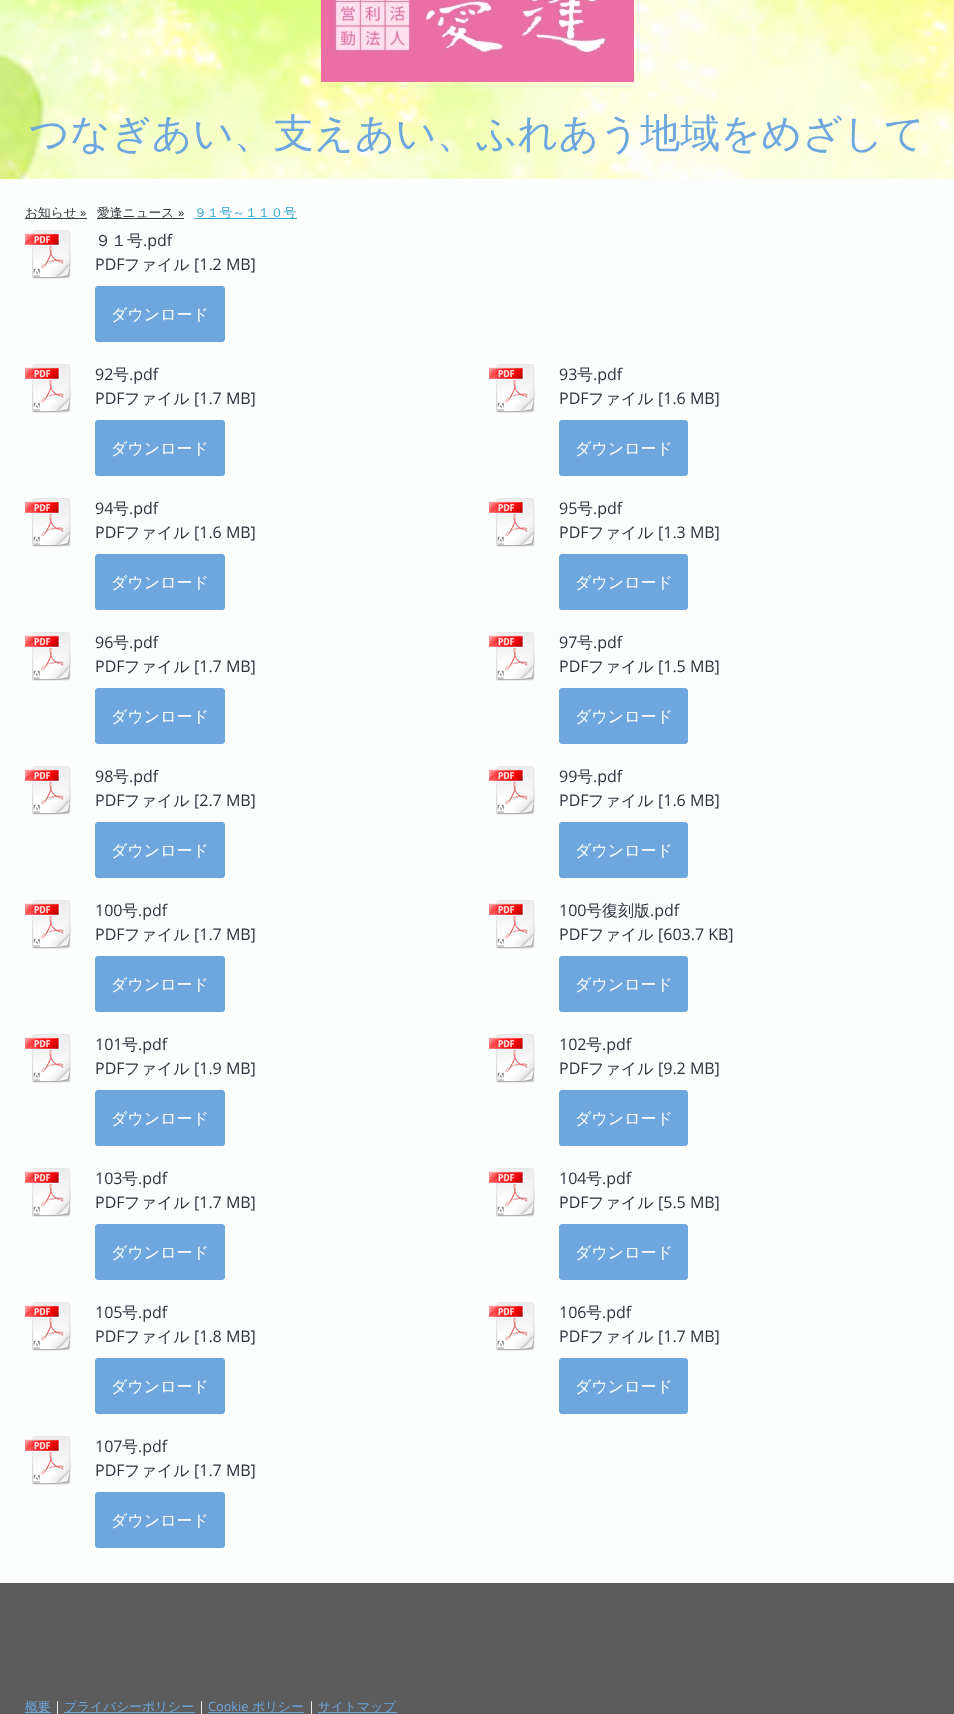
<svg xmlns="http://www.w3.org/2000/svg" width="954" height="1714">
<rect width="100%" height="100%" fill="#fff"/>
<image x="0" y="0" width="954" height="179" href="media/1.png"/>
<image x="321" y="0" width="313" height="82" href="media/2.png"/>
<text x="29" y="147" style="font-family:WenQuanYi Zen Hei;font-size:40px;font-weight:500;fill:#6da7de">つなぎあい、支えあい、ふれあう地域をめざして</text>
<rect y="179" width="954" height="1404" fill="#fcfdfd"/>
<rect x="25" y="218" width="62" height="1" fill="#323b3e"/>
<text x="25" y="217" style="font-family:WenQuanYi Zen Hei;font-size:12.75px;font-weight:500;fill:#323b3e">お知らせ</text>
<text x="80" y="217" style="font-family:Open Sans;font-size:12.75px;fill:#323b3e">»</text>
<rect x="97" y="218" width="87" height="1" fill="#323b3e"/>
<text x="97" y="217" style="font-family:WenQuanYi Zen Hei;font-size:12.75px;font-weight:500;fill:#323b3e">愛逢ニュース</text>
<text x="178" y="217" style="font-family:Open Sans;font-size:12.75px;fill:#323b3e">»</text>
<rect x="194" y="218" width="103" height="1" fill="#33a7cc"/>
<text x="194" y="217" style="font-family:WenQuanYi Zen Hei;font-size:12.75px;font-weight:500;fill:#33a7cc">９１号～１１０号</text>
<image x="25" y="230" width="46" height="49" href="media/3.png"/>
<text x="95" y="246" style="font-family:WenQuanYi Zen Hei;font-size:16px;font-weight:500;fill:#2a333c">９１号</text>
<text x="143" y="246" style="font-family:Open Sans;font-size:16px;fill:#2a333c">.pdf</text>
<text x="95" y="270" style="font-family:Open Sans;font-size:16px;fill:#2a333c">PDF</text>
<text x="124" y="270" style="font-family:WenQuanYi Zen Hei;font-size:16px;font-weight:500;fill:#2a333c">ファイル</text>
<text x="194" y="270" style="font-family:Open Sans;font-size:16px;fill:#2a333c">[1.2 MB]</text>
<rect x="95.5" y="286.5" width="129" height="55" rx="2.5" fill="#6da7de" stroke="#6da7de"/>
<text x="111" y="320" style="font-family:WenQuanYi Zen Hei;font-size:16px;font-weight:500;fill:#fff">ダウンロード</text>
<image x="25" y="364" width="46" height="49" href="media/3.png"/>
<text x="95" y="380" style="font-family:Open Sans;font-size:16px;fill:#2a333c">92</text>
<text x="113" y="380" style="font-family:WenQuanYi Zen Hei;font-size:16px;font-weight:500;fill:#2a333c">号</text>
<text x="129" y="380" style="font-family:Open Sans;font-size:16px;fill:#2a333c">.pdf</text>
<text x="95" y="404" style="font-family:Open Sans;font-size:16px;fill:#2a333c">PDF</text>
<text x="124" y="404" style="font-family:WenQuanYi Zen Hei;font-size:16px;font-weight:500;fill:#2a333c">ファイル</text>
<text x="194" y="404" style="font-family:Open Sans;font-size:16px;fill:#2a333c">[1.7 MB]</text>
<rect x="95.5" y="420.5" width="129" height="55" rx="2.5" fill="#6da7de" stroke="#6da7de"/>
<text x="111" y="454" style="font-family:WenQuanYi Zen Hei;font-size:16px;font-weight:500;fill:#fff">ダウンロード</text>
<image x="25" y="498" width="46" height="49" href="media/3.png"/>
<text x="95" y="514" style="font-family:Open Sans;font-size:16px;fill:#2a333c">94</text>
<text x="113" y="514" style="font-family:WenQuanYi Zen Hei;font-size:16px;font-weight:500;fill:#2a333c">号</text>
<text x="129" y="514" style="font-family:Open Sans;font-size:16px;fill:#2a333c">.pdf</text>
<text x="95" y="538" style="font-family:Open Sans;font-size:16px;fill:#2a333c">PDF</text>
<text x="124" y="538" style="font-family:WenQuanYi Zen Hei;font-size:16px;font-weight:500;fill:#2a333c">ファイル</text>
<text x="194" y="538" style="font-family:Open Sans;font-size:16px;fill:#2a333c">[1.6 MB]</text>
<rect x="95.5" y="554.5" width="129" height="55" rx="2.5" fill="#6da7de" stroke="#6da7de"/>
<text x="111" y="588" style="font-family:WenQuanYi Zen Hei;font-size:16px;font-weight:500;fill:#fff">ダウンロード</text>
<image x="25" y="632" width="46" height="49" href="media/3.png"/>
<text x="95" y="648" style="font-family:Open Sans;font-size:16px;fill:#2a333c">96</text>
<text x="113" y="648" style="font-family:WenQuanYi Zen Hei;font-size:16px;font-weight:500;fill:#2a333c">号</text>
<text x="129" y="648" style="font-family:Open Sans;font-size:16px;fill:#2a333c">.pdf</text>
<text x="95" y="672" style="font-family:Open Sans;font-size:16px;fill:#2a333c">PDF</text>
<text x="124" y="672" style="font-family:WenQuanYi Zen Hei;font-size:16px;font-weight:500;fill:#2a333c">ファイル</text>
<text x="194" y="672" style="font-family:Open Sans;font-size:16px;fill:#2a333c">[1.7 MB]</text>
<rect x="95.5" y="688.5" width="129" height="55" rx="2.5" fill="#6da7de" stroke="#6da7de"/>
<text x="111" y="722" style="font-family:WenQuanYi Zen Hei;font-size:16px;font-weight:500;fill:#fff">ダウンロード</text>
<image x="25" y="766" width="46" height="49" href="media/3.png"/>
<text x="95" y="782" style="font-family:Open Sans;font-size:16px;fill:#2a333c">98</text>
<text x="113" y="782" style="font-family:WenQuanYi Zen Hei;font-size:16px;font-weight:500;fill:#2a333c">号</text>
<text x="129" y="782" style="font-family:Open Sans;font-size:16px;fill:#2a333c">.pdf</text>
<text x="95" y="806" style="font-family:Open Sans;font-size:16px;fill:#2a333c">PDF</text>
<text x="124" y="806" style="font-family:WenQuanYi Zen Hei;font-size:16px;font-weight:500;fill:#2a333c">ファイル</text>
<text x="194" y="806" style="font-family:Open Sans;font-size:16px;fill:#2a333c">[2.7 MB]</text>
<rect x="95.5" y="822.5" width="129" height="55" rx="2.5" fill="#6da7de" stroke="#6da7de"/>
<text x="111" y="856" style="font-family:WenQuanYi Zen Hei;font-size:16px;font-weight:500;fill:#fff">ダウンロード</text>
<image x="25" y="900" width="46" height="49" href="media/3.png"/>
<text x="95" y="916" style="font-family:Open Sans;font-size:16px;fill:#2a333c">100</text>
<text x="122" y="916" style="font-family:WenQuanYi Zen Hei;font-size:16px;font-weight:500;fill:#2a333c">号</text>
<text x="138" y="916" style="font-family:Open Sans;font-size:16px;fill:#2a333c">.pdf</text>
<text x="95" y="940" style="font-family:Open Sans;font-size:16px;fill:#2a333c">PDF</text>
<text x="124" y="940" style="font-family:WenQuanYi Zen Hei;font-size:16px;font-weight:500;fill:#2a333c">ファイル</text>
<text x="194" y="940" style="font-family:Open Sans;font-size:16px;fill:#2a333c">[1.7 MB]</text>
<rect x="95.5" y="956.5" width="129" height="55" rx="2.5" fill="#6da7de" stroke="#6da7de"/>
<text x="111" y="990" style="font-family:WenQuanYi Zen Hei;font-size:16px;font-weight:500;fill:#fff">ダウンロード</text>
<image x="25" y="1034" width="46" height="49" href="media/3.png"/>
<text x="95" y="1050" style="font-family:Open Sans;font-size:16px;fill:#2a333c">101</text>
<text x="122" y="1050" style="font-family:WenQuanYi Zen Hei;font-size:16px;font-weight:500;fill:#2a333c">号</text>
<text x="138" y="1050" style="font-family:Open Sans;font-size:16px;fill:#2a333c">.pdf</text>
<text x="95" y="1074" style="font-family:Open Sans;font-size:16px;fill:#2a333c">PDF</text>
<text x="124" y="1074" style="font-family:WenQuanYi Zen Hei;font-size:16px;font-weight:500;fill:#2a333c">ファイル</text>
<text x="194" y="1074" style="font-family:Open Sans;font-size:16px;fill:#2a333c">[1.9 MB]</text>
<rect x="95.5" y="1090.5" width="129" height="55" rx="2.5" fill="#6da7de" stroke="#6da7de"/>
<text x="111" y="1124" style="font-family:WenQuanYi Zen Hei;font-size:16px;font-weight:500;fill:#fff">ダウンロード</text>
<image x="25" y="1168" width="46" height="49" href="media/3.png"/>
<text x="95" y="1184" style="font-family:Open Sans;font-size:16px;fill:#2a333c">103</text>
<text x="122" y="1184" style="font-family:WenQuanYi Zen Hei;font-size:16px;font-weight:500;fill:#2a333c">号</text>
<text x="138" y="1184" style="font-family:Open Sans;font-size:16px;fill:#2a333c">.pdf</text>
<text x="95" y="1208" style="font-family:Open Sans;font-size:16px;fill:#2a333c">PDF</text>
<text x="124" y="1208" style="font-family:WenQuanYi Zen Hei;font-size:16px;font-weight:500;fill:#2a333c">ファイル</text>
<text x="194" y="1208" style="font-family:Open Sans;font-size:16px;fill:#2a333c">[1.7 MB]</text>
<rect x="95.5" y="1224.5" width="129" height="55" rx="2.5" fill="#6da7de" stroke="#6da7de"/>
<text x="111" y="1258" style="font-family:WenQuanYi Zen Hei;font-size:16px;font-weight:500;fill:#fff">ダウンロード</text>
<image x="25" y="1302" width="46" height="49" href="media/3.png"/>
<text x="95" y="1318" style="font-family:Open Sans;font-size:16px;fill:#2a333c">105</text>
<text x="122" y="1318" style="font-family:WenQuanYi Zen Hei;font-size:16px;font-weight:500;fill:#2a333c">号</text>
<text x="138" y="1318" style="font-family:Open Sans;font-size:16px;fill:#2a333c">.pdf</text>
<text x="95" y="1342" style="font-family:Open Sans;font-size:16px;fill:#2a333c">PDF</text>
<text x="124" y="1342" style="font-family:WenQuanYi Zen Hei;font-size:16px;font-weight:500;fill:#2a333c">ファイル</text>
<text x="194" y="1342" style="font-family:Open Sans;font-size:16px;fill:#2a333c">[1.8 MB]</text>
<rect x="95.5" y="1358.5" width="129" height="55" rx="2.5" fill="#6da7de" stroke="#6da7de"/>
<text x="111" y="1392" style="font-family:WenQuanYi Zen Hei;font-size:16px;font-weight:500;fill:#fff">ダウンロード</text>
<image x="25" y="1436" width="46" height="49" href="media/3.png"/>
<text x="95" y="1452" style="font-family:Open Sans;font-size:16px;fill:#2a333c">107</text>
<text x="122" y="1452" style="font-family:WenQuanYi Zen Hei;font-size:16px;font-weight:500;fill:#2a333c">号</text>
<text x="138" y="1452" style="font-family:Open Sans;font-size:16px;fill:#2a333c">.pdf</text>
<text x="95" y="1476" style="font-family:Open Sans;font-size:16px;fill:#2a333c">PDF</text>
<text x="124" y="1476" style="font-family:WenQuanYi Zen Hei;font-size:16px;font-weight:500;fill:#2a333c">ファイル</text>
<text x="194" y="1476" style="font-family:Open Sans;font-size:16px;fill:#2a333c">[1.7 MB]</text>
<rect x="95.5" y="1492.5" width="129" height="55" rx="2.5" fill="#6da7de" stroke="#6da7de"/>
<text x="111" y="1526" style="font-family:WenQuanYi Zen Hei;font-size:16px;font-weight:500;fill:#fff">ダウンロード</text>
<image x="489" y="364" width="46" height="49" href="media/3.png"/>
<text x="559" y="380" style="font-family:Open Sans;font-size:16px;fill:#2a333c">93</text>
<text x="577" y="380" style="font-family:WenQuanYi Zen Hei;font-size:16px;font-weight:500;fill:#2a333c">号</text>
<text x="593" y="380" style="font-family:Open Sans;font-size:16px;fill:#2a333c">.pdf</text>
<text x="559" y="404" style="font-family:Open Sans;font-size:16px;fill:#2a333c">PDF</text>
<text x="588" y="404" style="font-family:WenQuanYi Zen Hei;font-size:16px;font-weight:500;fill:#2a333c">ファイル</text>
<text x="658" y="404" style="font-family:Open Sans;font-size:16px;fill:#2a333c">[1.6 MB]</text>
<rect x="559.5" y="420.5" width="128" height="55" rx="2.5" fill="#6da7de" stroke="#6da7de"/>
<text x="575" y="454" style="font-family:WenQuanYi Zen Hei;font-size:16px;font-weight:500;fill:#fff">ダウンロード</text>
<image x="489" y="498" width="46" height="49" href="media/3.png"/>
<text x="559" y="514" style="font-family:Open Sans;font-size:16px;fill:#2a333c">95</text>
<text x="577" y="514" style="font-family:WenQuanYi Zen Hei;font-size:16px;font-weight:500;fill:#2a333c">号</text>
<text x="593" y="514" style="font-family:Open Sans;font-size:16px;fill:#2a333c">.pdf</text>
<text x="559" y="538" style="font-family:Open Sans;font-size:16px;fill:#2a333c">PDF</text>
<text x="588" y="538" style="font-family:WenQuanYi Zen Hei;font-size:16px;font-weight:500;fill:#2a333c">ファイル</text>
<text x="658" y="538" style="font-family:Open Sans;font-size:16px;fill:#2a333c">[1.3 MB]</text>
<rect x="559.5" y="554.5" width="128" height="55" rx="2.5" fill="#6da7de" stroke="#6da7de"/>
<text x="575" y="588" style="font-family:WenQuanYi Zen Hei;font-size:16px;font-weight:500;fill:#fff">ダウンロード</text>
<image x="489" y="632" width="46" height="49" href="media/3.png"/>
<text x="559" y="648" style="font-family:Open Sans;font-size:16px;fill:#2a333c">97</text>
<text x="577" y="648" style="font-family:WenQuanYi Zen Hei;font-size:16px;font-weight:500;fill:#2a333c">号</text>
<text x="593" y="648" style="font-family:Open Sans;font-size:16px;fill:#2a333c">.pdf</text>
<text x="559" y="672" style="font-family:Open Sans;font-size:16px;fill:#2a333c">PDF</text>
<text x="588" y="672" style="font-family:WenQuanYi Zen Hei;font-size:16px;font-weight:500;fill:#2a333c">ファイル</text>
<text x="658" y="672" style="font-family:Open Sans;font-size:16px;fill:#2a333c">[1.5 MB]</text>
<rect x="559.5" y="688.5" width="128" height="55" rx="2.5" fill="#6da7de" stroke="#6da7de"/>
<text x="575" y="722" style="font-family:WenQuanYi Zen Hei;font-size:16px;font-weight:500;fill:#fff">ダウンロード</text>
<image x="489" y="766" width="46" height="49" href="media/3.png"/>
<text x="559" y="782" style="font-family:Open Sans;font-size:16px;fill:#2a333c">99</text>
<text x="577" y="782" style="font-family:WenQuanYi Zen Hei;font-size:16px;font-weight:500;fill:#2a333c">号</text>
<text x="593" y="782" style="font-family:Open Sans;font-size:16px;fill:#2a333c">.pdf</text>
<text x="559" y="806" style="font-family:Open Sans;font-size:16px;fill:#2a333c">PDF</text>
<text x="588" y="806" style="font-family:WenQuanYi Zen Hei;font-size:16px;font-weight:500;fill:#2a333c">ファイル</text>
<text x="658" y="806" style="font-family:Open Sans;font-size:16px;fill:#2a333c">[1.6 MB]</text>
<rect x="559.5" y="822.5" width="128" height="55" rx="2.5" fill="#6da7de" stroke="#6da7de"/>
<text x="575" y="856" style="font-family:WenQuanYi Zen Hei;font-size:16px;font-weight:500;fill:#fff">ダウンロード</text>
<image x="489" y="900" width="46" height="49" href="media/3.png"/>
<text x="559" y="916" style="font-family:Open Sans;font-size:16px;fill:#2a333c">100</text>
<text x="586" y="916" style="font-family:WenQuanYi Zen Hei;font-size:16px;font-weight:500;fill:#2a333c">号復刻版</text>
<text x="650" y="916" style="font-family:Open Sans;font-size:16px;fill:#2a333c">.pdf</text>
<text x="559" y="940" style="font-family:Open Sans;font-size:16px;fill:#2a333c">PDF</text>
<text x="588" y="940" style="font-family:WenQuanYi Zen Hei;font-size:16px;font-weight:500;fill:#2a333c">ファイル</text>
<text x="658" y="940" style="font-family:Open Sans;font-size:16px;fill:#2a333c">[603.7 KB]</text>
<rect x="559.5" y="956.5" width="128" height="55" rx="2.5" fill="#6da7de" stroke="#6da7de"/>
<text x="575" y="990" style="font-family:WenQuanYi Zen Hei;font-size:16px;font-weight:500;fill:#fff">ダウンロード</text>
<image x="489" y="1034" width="46" height="49" href="media/3.png"/>
<text x="559" y="1050" style="font-family:Open Sans;font-size:16px;fill:#2a333c">102</text>
<text x="586" y="1050" style="font-family:WenQuanYi Zen Hei;font-size:16px;font-weight:500;fill:#2a333c">号</text>
<text x="602" y="1050" style="font-family:Open Sans;font-size:16px;fill:#2a333c">.pdf</text>
<text x="559" y="1074" style="font-family:Open Sans;font-size:16px;fill:#2a333c">PDF</text>
<text x="588" y="1074" style="font-family:WenQuanYi Zen Hei;font-size:16px;font-weight:500;fill:#2a333c">ファイル</text>
<text x="658" y="1074" style="font-family:Open Sans;font-size:16px;fill:#2a333c">[9.2 MB]</text>
<rect x="559.5" y="1090.5" width="128" height="55" rx="2.5" fill="#6da7de" stroke="#6da7de"/>
<text x="575" y="1124" style="font-family:WenQuanYi Zen Hei;font-size:16px;font-weight:500;fill:#fff">ダウンロード</text>
<image x="489" y="1168" width="46" height="49" href="media/3.png"/>
<text x="559" y="1184" style="font-family:Open Sans;font-size:16px;fill:#2a333c">104</text>
<text x="586" y="1184" style="font-family:WenQuanYi Zen Hei;font-size:16px;font-weight:500;fill:#2a333c">号</text>
<text x="602" y="1184" style="font-family:Open Sans;font-size:16px;fill:#2a333c">.pdf</text>
<text x="559" y="1208" style="font-family:Open Sans;font-size:16px;fill:#2a333c">PDF</text>
<text x="588" y="1208" style="font-family:WenQuanYi Zen Hei;font-size:16px;font-weight:500;fill:#2a333c">ファイル</text>
<text x="658" y="1208" style="font-family:Open Sans;font-size:16px;fill:#2a333c">[5.5 MB]</text>
<rect x="559.5" y="1224.5" width="128" height="55" rx="2.5" fill="#6da7de" stroke="#6da7de"/>
<text x="575" y="1258" style="font-family:WenQuanYi Zen Hei;font-size:16px;font-weight:500;fill:#fff">ダウンロード</text>
<image x="489" y="1302" width="46" height="49" href="media/3.png"/>
<text x="559" y="1318" style="font-family:Open Sans;font-size:16px;fill:#2a333c">106</text>
<text x="586" y="1318" style="font-family:WenQuanYi Zen Hei;font-size:16px;font-weight:500;fill:#2a333c">号</text>
<text x="602" y="1318" style="font-family:Open Sans;font-size:16px;fill:#2a333c">.pdf</text>
<text x="559" y="1342" style="font-family:Open Sans;font-size:16px;fill:#2a333c">PDF</text>
<text x="588" y="1342" style="font-family:WenQuanYi Zen Hei;font-size:16px;font-weight:500;fill:#2a333c">ファイル</text>
<text x="658" y="1342" style="font-family:Open Sans;font-size:16px;fill:#2a333c">[1.7 MB]</text>
<rect x="559.5" y="1358.5" width="128" height="55" rx="2.5" fill="#6da7de" stroke="#6da7de"/>
<text x="575" y="1392" style="font-family:WenQuanYi Zen Hei;font-size:16px;font-weight:500;fill:#fff">ダウンロード</text>
<rect y="1583" width="954" height="131" fill="#5c5c5c"/>
<rect x="25" y="1712" width="26" height="1" fill="#6da7de"/>
<text x="25" y="1711" style="font-family:WenQuanYi Zen Hei;font-size:12.75px;font-weight:500;fill:#6da7de">概要</text>
<text x="54" y="1711" style="font-family:Open Sans;font-size:12.75px;fill:#fff">|</text>
<rect x="64" y="1712" width="131" height="1" fill="#6da7de"/>
<text x="64" y="1711" style="font-family:WenQuanYi Zen Hei;font-size:12.75px;font-weight:500;fill:#6da7de">プライバシーポリシー</text>
<text x="198" y="1711" style="font-family:Open Sans;font-size:12.75px;fill:#fff">|</text>
<text x="208" y="1711" style="font-family:Open Sans;font-size:12.75px;fill:#6da7de">Cookie</text>
<rect x="208" y="1712" width="96" height="1" fill="#6da7de"/>
<text x="252" y="1711" style="font-family:WenQuanYi Zen Hei;font-size:12.75px;font-weight:500;fill:#6da7de">ポリシー</text>
<text x="308" y="1711" style="font-family:Open Sans;font-size:12.75px;fill:#fff">|</text>
<rect x="318" y="1712" width="79" height="1" fill="#6da7de"/>
<text x="318" y="1711" style="font-family:WenQuanYi Zen Hei;font-size:12.75px;font-weight:500;fill:#6da7de">サイトマップ</text>
</svg>
